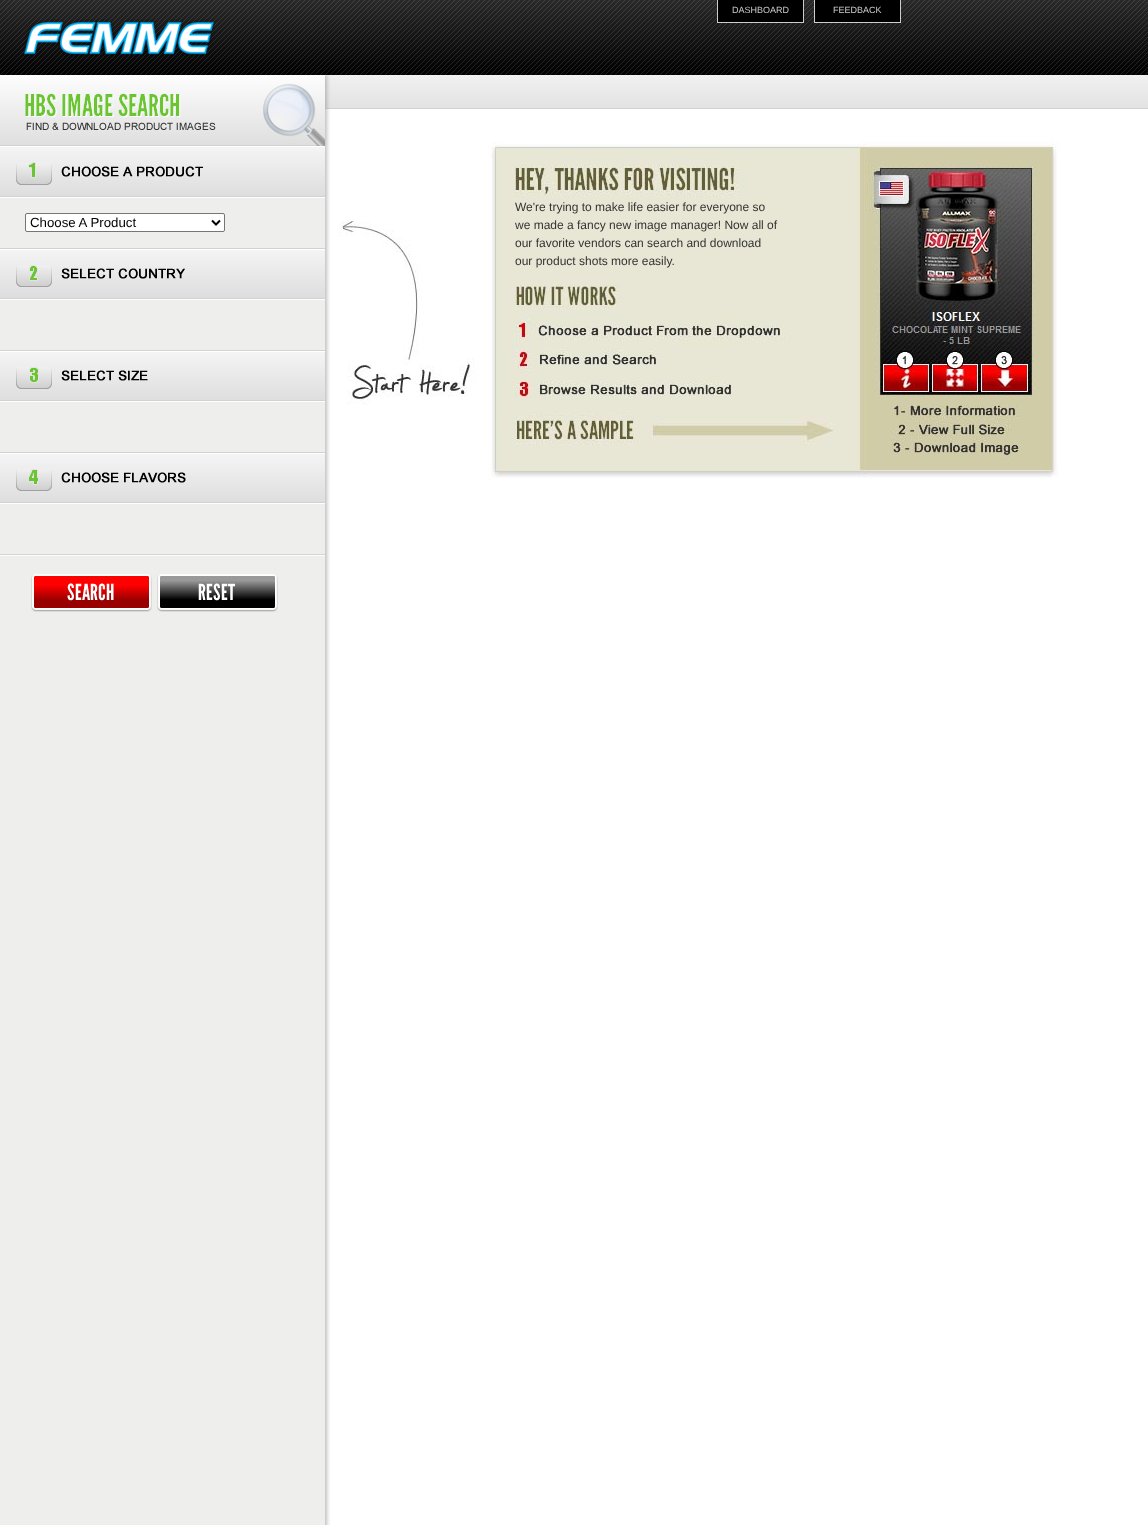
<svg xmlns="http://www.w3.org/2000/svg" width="1148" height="1525">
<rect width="100%" height="100%" fill="#fff"/>
<image x="0" y="0" width="1148" height="75" href="media/1.png"/>
<rect x="718" width="85" height="22" fill="#000"/>
<rect x="803" width="1" height="23" fill="#ccc"/>
<rect x="717" y="22" width="87" height="1" fill="#ccc"/>
<rect x="717" width="1" height="23" fill="#ccc"/>
<text x="732" y="13" style="font-family:Liberation Sans;font-size:9px;fill:#ccc">DASHBOARD</text>
<rect x="815" width="85" height="22" fill="#000"/>
<rect x="900" width="1" height="23" fill="#ccc"/>
<rect x="814" y="22" width="87" height="1" fill="#ccc"/>
<rect x="814" width="1" height="23" fill="#ccc"/>
<text x="833" y="13" style="font-family:Liberation Sans;font-size:9px;fill:#ccc">FEEDBACK</text>
<image x="24" y="19" width="191" height="37" href="media/2.png"/>
<rect y="198" width="325" height="1327" fill="#eeeeec"/>
<image x="325" y="146" width="6" height="1379" href="media/3.png"/>
<image x="0" y="75" width="331" height="71" href="media/4.png"/>
<image x="0" y="146" width="325" height="52" href="media/5.png"/>
<image x="16" y="162" width="36" height="23" href="media/6.png"/>
<rect x="25.5" y="213.5" width="199" height="18" rx="1.5" fill="#fff" stroke="#767676"/>
<path d="M212 220.5l4 4l4-4" fill="none" stroke="#000" stroke-width="2"/>
<text x="30" y="227" style="font-family:Liberation Sans;font-size:13.25px;fill:#000">Choose A Product</text>
<image x="0" y="248" width="325" height="52" href="media/7.png"/>
<image x="16" y="265" width="36" height="22" href="media/8.png"/>
<image x="0" y="350" width="325" height="52" href="media/9.png"/>
<image x="16" y="367" width="36" height="22" href="media/10.png"/>
<image x="0" y="452" width="325" height="52" href="media/11.png"/>
<image x="16" y="469" width="36" height="22" href="media/12.png"/>
<image x="0" y="554" width="325" height="2" href="media/13.png"/>
<image x="31" y="574" width="121" height="38" href="media/14.png"/>
<image x="157" y="574" width="121" height="38" href="media/15.png"/>
<image x="331" y="75" width="817" height="34" href="media/16.png"/>
<image x="339" y="141" width="720" height="337" href="media/17.png"/>
<text x="515" y="211" style="font-family:Liberation Sans;font-size:12px;fill:#333">We're trying to make life easier for everyone so</text>
<text x="515" y="229" style="font-family:Liberation Sans;font-size:12px;fill:#333">we made a fancy new image manager! Now all of</text>
<text x="515" y="247" style="font-family:Liberation Sans;font-size:12px;fill:#333">our favorite vendors can search and download</text>
<text x="515" y="265" style="font-family:Liberation Sans;font-size:12px;fill:#333">our product shots more easily.</text>
</svg>
